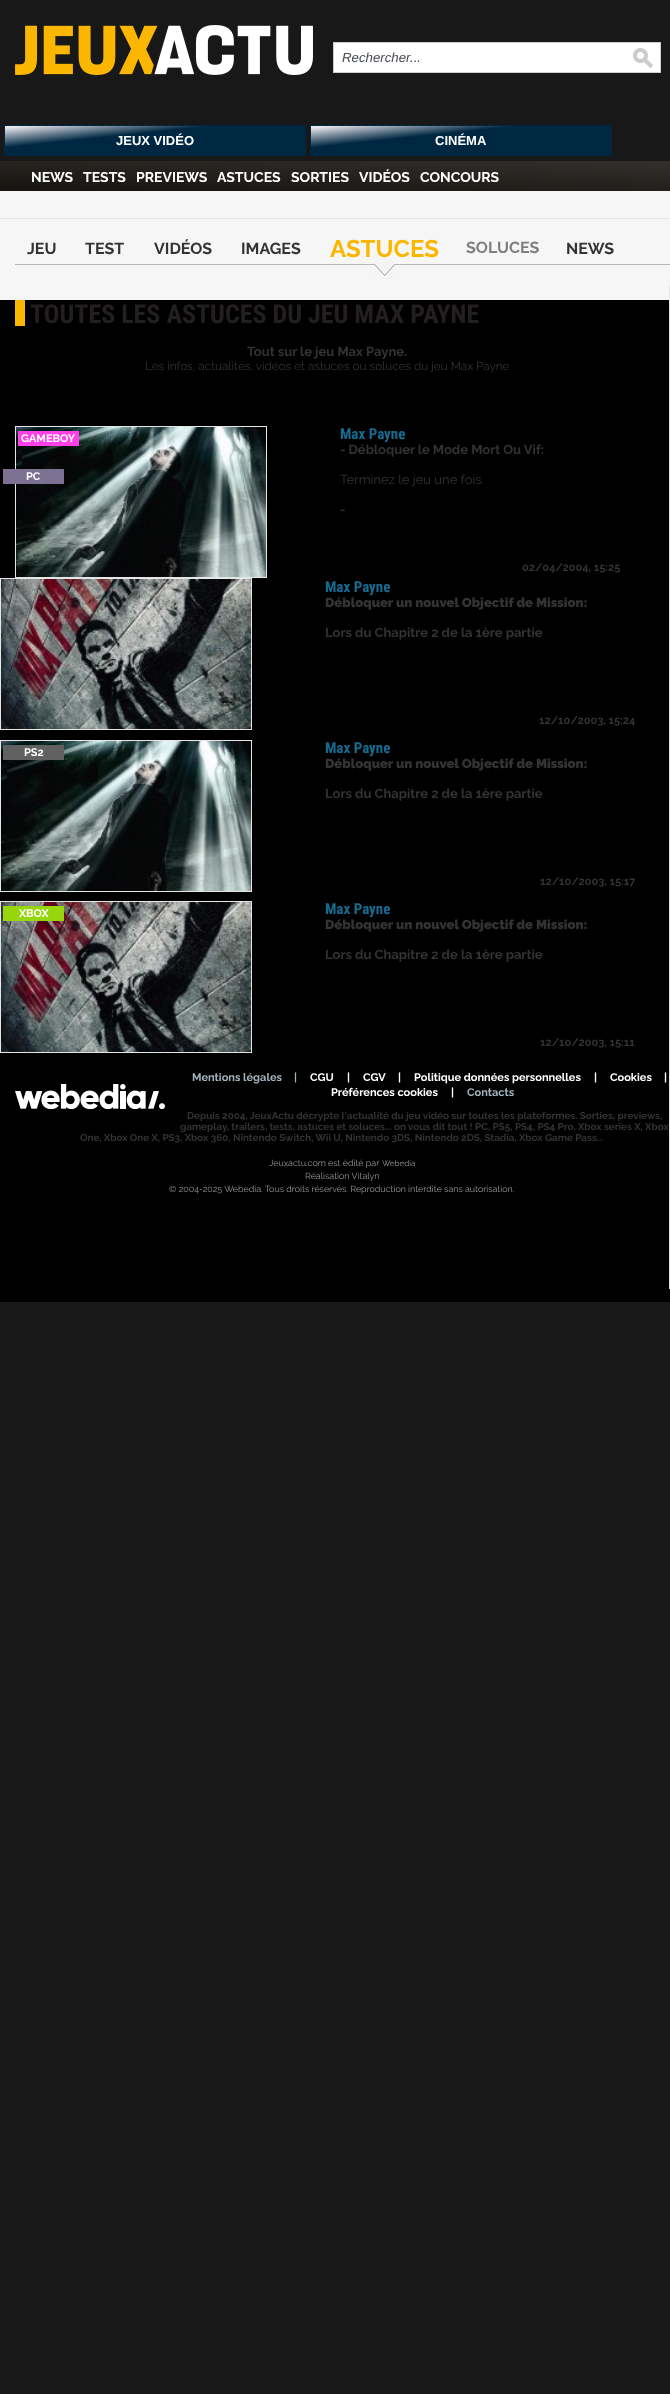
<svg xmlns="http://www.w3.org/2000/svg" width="670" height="2394">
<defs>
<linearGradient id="g1" gradientUnits="userSpaceOnUse" x1="158" y1="169" x2="152" y2="112"><stop offset="0.65" stop-color="#002742"/><stop offset="1" stop-color="#edebf0"/></linearGradient>
<linearGradient id="g2" gradientUnits="userSpaceOnUse" x1="464" y1="169" x2="458" y2="112"><stop offset="0.65" stop-color="#002742"/><stop offset="1" stop-color="#edebf0"/></linearGradient>
<linearGradient id="g3" gradientUnits="userSpaceOnUse" x1="501" y1="146" x2="499" y2="206"><stop offset="0" stop-color="#393431"/><stop offset="1" stop-color="#171511"/></linearGradient>
</defs>
<rect width="100%" height="100%" fill="#181818"/>
<image x="15" y="25" width="298" height="50" href="media/1.png"/>
<rect x="333.5" y="42.5" width="327" height="30" fill="#fff" stroke="#ccc"/>
<text x="342" y="62" style="font-family:Liberation Sans;font-size:13.25px;font-style:italic;fill:#474b54">Rechercher...</text>
<image x="633" y="48" width="20" height="20" href="media/2.png"/>
<rect x="5" y="126" width="300" height="29" fill="url(#g1)"/>
<rect x="4.5" y="125.5" width="301" height="30" fill="none" stroke="#002742"/>
<text x="116" y="145" style="font-family:Liberation Sans;font-size:13px;font-weight:bold;fill:#fff">JEUX VIDÉO</text>
<rect x="311" y="126" width="300" height="29" fill="url(#g2)"/>
<rect x="310.5" y="125.5" width="301" height="30" fill="none" stroke="#002742"/>
<text x="435" y="145" style="font-family:Liberation Sans;font-size:13px;font-weight:bold;fill:#fff">CINÉMA</text>
<rect y="191" width="670" height="27" fill="#f6f6f7"/>
<rect y="161" width="670" height="30" fill="url(#g3)"/>
<text x="31" y="182" style="font-family:Raleway;font-size:14px;font-weight:bold;fill:#fff">NEWS</text>
<text x="83" y="182" style="font-family:Raleway;font-size:14px;font-weight:bold;fill:#fff">TESTS</text>
<text x="136" y="182" style="font-family:Raleway;font-size:14px;font-weight:bold;fill:#fff">PREVIEWS</text>
<text x="217" y="182" style="font-family:Raleway;font-size:14px;font-weight:bold;fill:#fff">ASTUCES</text>
<text x="291" y="182" style="font-family:Raleway;font-size:14px;font-weight:bold;fill:#fff">SORTIES</text>
<text x="359" y="182" style="font-family:Raleway;font-size:14px;font-weight:bold;fill:#fff">VIDÉOS</text>
<text x="420" y="182" style="font-family:Raleway;font-size:14px;font-weight:bold;fill:#fff">CONCOURS</text>
<rect y="219" width="670" height="81" fill="#f6f6f7"/>
<rect y="218" width="670" height="1" fill="#e6e6e6"/>
<rect x="15" y="264" width="655" height="1" fill="#b8b8b8"/>
<text x="27" y="254" style="font-family:Raleway;font-size:16px;font-weight:bold;fill:#333">JEU</text>
<text x="85" y="254" style="font-family:Raleway;font-size:16px;font-weight:bold;fill:#333">TEST</text>
<text x="154" y="254" style="font-family:Raleway;font-size:16px;font-weight:bold;fill:#333">VIDÉOS</text>
<text x="241" y="254" style="font-family:Raleway;font-size:16px;font-weight:bold;fill:#333">IMAGES</text>
<image x="374" y="262" width="21" height="14" href="media/3.png"/>
<text x="330" y="257" style="font-family:Raleway;font-size:24px;font-weight:bold;fill:#fbb700">ASTUCES</text>
<text x="466" y="253" style="font-family:Raleway;font-size:16px;font-weight:bold;fill:#808080">SOLUCES</text>
<text x="566" y="254" style="font-family:Raleway;font-size:16px;font-weight:bold;fill:#333">NEWS</text>
<rect y="300" width="670" height="1002" fill="#000"/>
<rect x="15" y="300" width="10" height="26" fill="#fbb700"/>
<text x="30" y="323" style="font-family:Roboto Condensed;font-size:26px;font-weight:bold;fill:#231f20">TOUTES LES ASTUCES DU JEU MAX PAYNE</text>
<text x="247" y="356" style="font-family:Raleway;font-size:13px;font-weight:bold;fill:#333">Tout sur le jeu Max Payne.</text>
<text x="145" y="370" style="font-family:Raleway;font-size:11.7px;fill:#333">Les infos, actualités, vidéos et astuces ou soluces du jeu Max Payne</text>
<rect x="15.5" y="426.5" width="251" height="151" fill="none" stroke="#e6e6e6"/>
<image x="16" y="427" width="250" height="150" href="media/4.png"/>
<rect x="18" y="431" width="61" height="15" fill="#ff40e7"/>
<text x="21" y="442" style="font-family:Raleway;font-size:11px;font-weight:bold;fill:#fff">GAMEBOY</text>
<text x="340" y="439" style="font-family:Roboto Condensed;font-size:15px;font-weight:bold;fill:#176c93">Max Payne</text>
<text x="340" y="454" style="font-family:Raleway;font-size:13px;font-weight:bold;fill:#333">- Débloquer le Mode Mort Ou Vif:</text>
<text x="340" y="484" style="font-family:Raleway;font-size:13px;fill:#333">Terminez le jeu une fois.</text>
<text x="340" y="514" style="font-family:Raleway;font-size:13px;font-weight:bold;fill:#333">-</text>
<text x="522" y="571" style="font-family:Raleway;font-size:11px;font-weight:bold;fill:#333">02/04/2004, 15:25</text>
<rect x="3" y="469" width="61" height="15" fill="#7d7192"/>
<text x="26" y="480" style="font-family:Raleway;font-size:11px;font-weight:bold;fill:#fff">PC</text>
<rect x="0.5" y="578.5" width="251" height="151" fill="none" stroke="#e6e6e6"/>
<image x="1" y="579" width="250" height="150" href="media/5.png"/>
<text x="325" y="592" style="font-family:Roboto Condensed;font-size:15px;font-weight:bold;fill:#176c93">Max Payne</text>
<text x="325" y="607" style="font-family:Raleway;font-size:13px;font-weight:900;fill:#333">Débloquer un nouvel Objectif de Mission:</text>
<text x="325" y="637" style="font-family:Raleway;font-size:13px;font-weight:bold;fill:#333">Lors du Chapitre 2 de la 1ère partie</text>
<text x="539" y="724" style="font-family:Raleway;font-size:11px;font-weight:bold;fill:#333">12/10/2003, 15:24</text>
<rect x="0.5" y="740.5" width="251" height="151" fill="none" stroke="#e6e6e6"/>
<image x="1" y="741" width="250" height="150" href="media/4.png"/>
<rect x="3" y="745" width="61" height="15" fill="#616161"/>
<text x="24" y="756" style="font-family:Raleway;font-size:11px;font-weight:bold;fill:#fff">PS2</text>
<text x="325" y="753" style="font-family:Roboto Condensed;font-size:15px;font-weight:bold;fill:#176c93">Max Payne</text>
<text x="325" y="768" style="font-family:Raleway;font-size:13px;font-weight:900;fill:#333">Débloquer un nouvel Objectif de Mission:</text>
<text x="325" y="798" style="font-family:Raleway;font-size:13px;font-weight:bold;fill:#333">Lors du Chapitre 2 de la 1ère partie</text>
<text x="540" y="885" style="font-family:Raleway;font-size:11px;font-weight:bold;fill:#333">12/10/2003, 15:17</text>
<rect x="0.5" y="901.5" width="251" height="151" fill="none" stroke="#e6e6e6"/>
<image x="1" y="902" width="250" height="150" href="media/5.png"/>
<rect x="3" y="906" width="61" height="15" fill="#97d60d"/>
<text x="19" y="917" style="font-family:Raleway;font-size:11px;font-weight:bold;fill:#fff">XBOX</text>
<text x="325" y="914" style="font-family:Roboto Condensed;font-size:15px;font-weight:bold;fill:#176c93">Max Payne</text>
<text x="325" y="929" style="font-family:Raleway;font-size:13px;font-weight:900;fill:#333">Débloquer un nouvel Objectif de Mission:</text>
<text x="325" y="959" style="font-family:Raleway;font-size:13px;font-weight:bold;fill:#333">Lors du Chapitre 2 de la 1ère partie</text>
<text x="540" y="1046" style="font-family:Raleway;font-size:11px;font-weight:bold;fill:#333">12/10/2003, 15:11</text>
<rect x="669" y="285" width="1" height="1004" fill="#e6e6e6"/>
<image x="15" y="1084" width="150" height="25" href="media/6.png"/>
<text x="192" y="1081" style="font-family:Raleway;font-size:11px;font-weight:bold;fill:#a2b5bc">Mentions légales</text>
<text x="294" y="1081" style="font-family:Raleway;font-size:11px;font-weight:bold;fill:#a2b5bc">|</text>
<text x="310" y="1081" style="font-family:Raleway;font-size:11px;font-weight:bold;fill:#fff">CGU</text>
<text x="347" y="1081" style="font-family:Raleway;font-size:11px;font-weight:bold;fill:#fff">|</text>
<text x="363" y="1081" style="font-family:Raleway;font-size:11px;font-weight:bold;fill:#fff">CGV</text>
<text x="398" y="1081" style="font-family:Raleway;font-size:11px;font-weight:bold;fill:#fff">|</text>
<text x="414" y="1081" style="font-family:Raleway;font-size:11px;font-weight:bold;fill:#fff">Politique données personnelles</text>
<text x="594" y="1081" style="font-family:Raleway;font-size:11px;font-weight:bold;fill:#fff">|</text>
<text x="610" y="1081" style="font-family:Raleway;font-size:11px;font-weight:bold;fill:#fff">Cookies</text>
<text x="664" y="1081" style="font-family:Raleway;font-size:11px;font-weight:bold;fill:#fff">|</text>
<text x="331" y="1096" style="font-family:Raleway;font-size:11px;font-weight:bold;fill:#fff">Préférences cookies</text>
<text x="451" y="1096" style="font-family:Raleway;font-size:11px;font-weight:bold;fill:#fff">|</text>
<text x="467" y="1096" style="font-family:Raleway;font-size:11px;font-weight:bold;fill:#a2b5bc">Contacts</text>
<text x="187" y="1119" style="font-family:Raleway;font-size:9.9px;font-weight:bold;fill:#333">Depuis 2004, JeuxActu décrypte l'actualité du jeu vidéo sur toutes les plateformes. Sorties, previews,</text>
<text x="180" y="1130" style="font-family:Raleway;font-size:9.9px;font-weight:bold;fill:#333">gameplay, trailers, tests, astuces et soluces... on vous dit tout ! PC, PS5, PS4, PS4 Pro, Xbox series X, Xbox</text>
<text x="80" y="1141" style="font-family:Raleway;font-size:9.9px;font-weight:bold;fill:#333">One, Xbox One X, PS3, Xbox 360, Nintendo Switch, Wii U, Nintendo 3DS, Nintendo 2DS, Stadia, Xbox Game Pass...</text>
<text x="269" y="1166" style="font-family:Raleway;font-size:8.9px;fill:#989898">Jeuxactu.com est édité par</text>
<text x="382" y="1166" style="font-family:Raleway;font-size:8px;fill:#989898">Webedia</text>
<text x="305" y="1179" style="font-family:Raleway;font-size:8.9px;fill:#989898">Réalisation Vitalyn</text>
<text x="169" y="1192" style="font-family:Raleway;font-size:8.9px;fill:#989898">© 2004-2025 Webedia. Tous droits réservés. Reproduction interdite sans autorisation.</text>
</svg>
